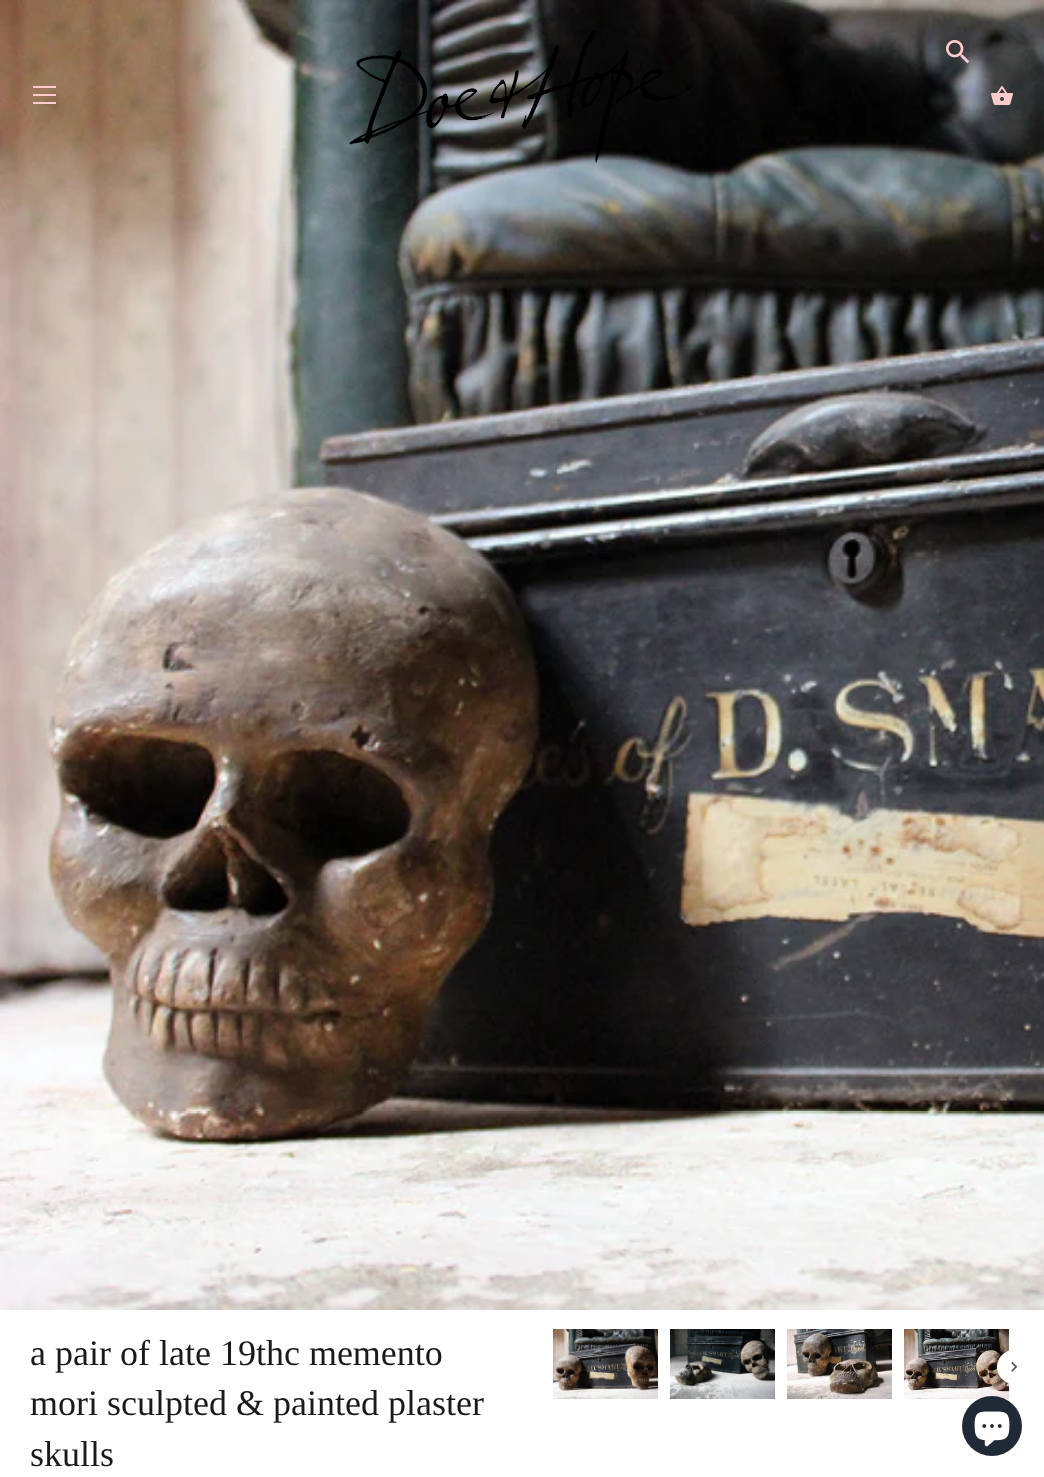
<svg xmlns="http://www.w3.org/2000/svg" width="1044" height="1477">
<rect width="100%" height="100%" fill="#fff"/>
<image x="0" y="0" width="1044" height="1310" href="media/4.png"/>
<image x="349" y="30" width="343" height="133" href="media/1.png"/>
<image x="946" y="40" width="24" height="24" href="media/2.png"/>
<rect x="33" y="86" width="23" height="2" fill="#fcc"/>
<rect x="33" y="94" width="23" height="2" fill="#fcc"/>
<rect x="33" y="102" width="23" height="2" fill="#fcc"/>
<image x="991" y="86" width="22" height="19" href="media/3.png"/>
<text x="30" y="1365" style="font-family:Liberation Serif;font-size:36px;fill:#1a1a1a">a pair of late 19thc memento</text>
<text x="30" y="1415" style="font-family:Liberation Serif;font-size:36px;fill:#1a1a1a">mori sculpted &amp; painted plaster</text>
<text x="30" y="1466" style="font-family:Liberation Serif;font-size:36px;fill:#1a1a1a">skulls</text>
<image x="553" y="1329" width="105" height="70" href="media/5.png"/>
<image x="670" y="1329" width="105" height="70" href="media/6.png"/>
<image x="787" y="1329" width="105" height="70" href="media/7.png"/>
<image x="904" y="1329" width="105" height="70" href="media/8.png"/>
<circle cx="1014" cy="1367" r="17" fill="#fff"/>
<image x="1011" y="1361" width="7" height="11" href="media/9.png"/>
<circle cx="992" cy="1426" r="30" fill="#202a36"/>
<image x="974" y="1411" width="36" height="36" href="media/10.png"/>
</svg>
